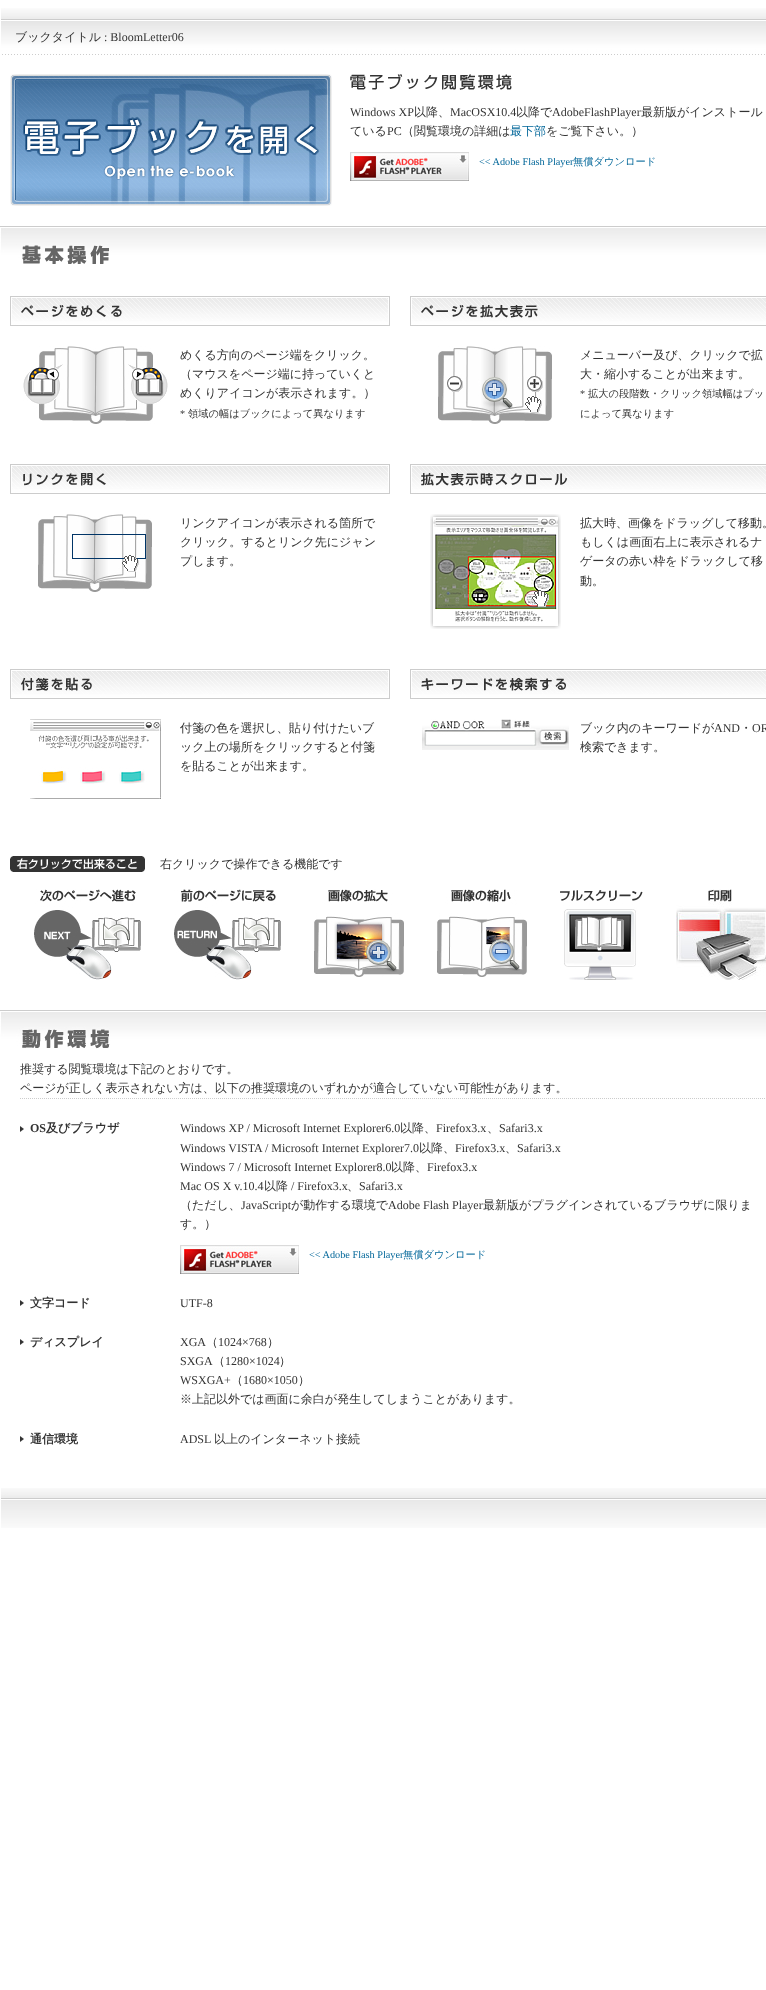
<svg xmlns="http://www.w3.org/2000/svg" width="766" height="1990">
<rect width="100%" height="100%" fill="#fff"/>
<image x="1" y="8" width="765" height="47" href="media/1.png"/>
<text x="15" y="41" style="font-family:WenQuanYi Zen Hei;font-size:12px;font-weight:500;fill:#333">ブックタイトル</text>
<text x="104" y="41" style="font-family:Liberation Serif;font-size:12px;fill:#333">: BloomLetter06</text>
<image x="10" y="74" width="322" height="132" href="media/2.png"/>
<image x="350" y="74" width="162" height="16" href="media/3.png"/>
<text x="350" y="116" style="font-family:Liberation Serif;font-size:12px;fill:#333">Windows XP</text>
<text x="414" y="116" style="font-family:WenQuanYi Zen Hei;font-size:12px;font-weight:500;fill:#333">以降、</text>
<text x="450" y="116" style="font-family:Liberation Serif;font-size:12px;fill:#333">MacOSX10.4</text>
<text x="516" y="116" style="font-family:WenQuanYi Zen Hei;font-size:12px;font-weight:500;fill:#333">以降で</text>
<text x="552" y="116" style="font-family:Liberation Serif;font-size:12px;fill:#333">AdobeFlashPlayer</text>
<text x="641" y="116" style="font-family:WenQuanYi Zen Hei;font-size:12px;font-weight:500;fill:#333">最新版がインストール</text>
<text x="350" y="135" style="font-family:WenQuanYi Zen Hei;font-size:12px;font-weight:500;fill:#333">ている</text>
<text x="387" y="135" style="font-family:Liberation Serif;font-size:12px;fill:#333">PC</text>
<text x="402" y="135" style="font-family:WenQuanYi Zen Hei;font-size:12px;font-weight:500;fill:#333">（閲覧環境の詳細は</text>
<text x="510" y="135" style="font-family:WenQuanYi Zen Hei;font-size:12px;font-weight:500;fill:#069">最下部</text>
<text x="546" y="135" style="font-family:WenQuanYi Zen Hei;font-size:12px;font-weight:500;fill:#333">をご覧下さい。）</text>
<image x="350" y="152" width="119" height="29" href="media/4.png"/>
<text x="479" y="165" style="font-family:Liberation Serif;font-size:10.25px;fill:#069">&lt;&lt; Adobe Flash Player</text>
<text x="573" y="165" style="font-family:WenQuanYi Zen Hei;font-size:10.25px;font-weight:500;fill:#069">無償ダウンロード</text>
<image x="0" y="226" width="766" height="38" href="media/5.png"/>
<image x="10" y="296" width="380" height="30" href="media/6.png"/>
<image x="23" y="346" width="145" height="78" href="media/7.png"/>
<text x="180" y="359" style="font-family:WenQuanYi Zen Hei;font-size:12px;font-weight:500;fill:#333">めくる方向のページ端をクリック。</text>
<text x="180" y="378" style="font-family:WenQuanYi Zen Hei;font-size:12px;font-weight:500;fill:#333">（マウスをページ端に持っていくと</text>
<text x="180" y="397" style="font-family:WenQuanYi Zen Hei;font-size:12px;font-weight:500;fill:#333">めくりアイコンが表示されます。）</text>
<text x="180" y="417" style="font-family:Liberation Serif;font-size:10.25px;fill:#333">*</text>
<text x="188" y="417" style="font-family:WenQuanYi Zen Hei;font-size:10.25px;font-weight:500;fill:#333">領域の幅はブックによって異なります</text>
<image x="410" y="296" width="356" height="30" href="media/8.png"/>
<image x="438" y="346" width="114" height="78" href="media/9.png"/>
<text x="580" y="359" style="font-family:WenQuanYi Zen Hei;font-size:12px;font-weight:500;fill:#333">メニューバー及び、クリックで拡</text>
<text x="580" y="378" style="font-family:WenQuanYi Zen Hei;font-size:12px;font-weight:500;fill:#333">大・縮小することが出来ます。</text>
<text x="580" y="397" style="font-family:Liberation Serif;font-size:10.25px;fill:#333">*</text>
<text x="588" y="397" style="font-family:WenQuanYi Zen Hei;font-size:10.25px;font-weight:500;fill:#333">拡大の段階数・クリック領域幅はブッ</text>
<text x="580" y="417" style="font-family:WenQuanYi Zen Hei;font-size:10.25px;font-weight:500;fill:#333">によって異なります</text>
<image x="10" y="464" width="380" height="30" href="media/10.png"/>
<image x="38" y="514" width="114" height="78" href="media/11.png"/>
<text x="180" y="527" style="font-family:WenQuanYi Zen Hei;font-size:12px;font-weight:500;fill:#333">リンクアイコンが表示される箇所で</text>
<text x="180" y="546" style="font-family:WenQuanYi Zen Hei;font-size:12px;font-weight:500;fill:#333">クリック。するとリンク先にジャン</text>
<text x="180" y="565" style="font-family:WenQuanYi Zen Hei;font-size:12px;font-weight:500;fill:#333">プします。</text>
<image x="410" y="464" width="356" height="30" href="media/12.png"/>
<image x="430" y="514" width="131" height="115" href="media/13.png"/>
<text x="580" y="527" style="font-family:WenQuanYi Zen Hei;font-size:12px;font-weight:500;fill:#333">拡大時、画像をドラッグして移動。</text>
<text x="580" y="546" style="font-family:WenQuanYi Zen Hei;font-size:12px;font-weight:500;fill:#333">もしくは画面右上に表示されるナ</text>
<text x="580" y="565" style="font-family:WenQuanYi Zen Hei;font-size:12px;font-weight:500;fill:#333">ゲータの赤い枠をドラックして移</text>
<text x="580" y="585" style="font-family:WenQuanYi Zen Hei;font-size:12px;font-weight:500;fill:#333">動。</text>
<image x="10" y="669" width="380" height="30" href="media/14.png"/>
<image x="30" y="719" width="131" height="80" href="media/15.png"/>
<text x="180" y="732" style="font-family:WenQuanYi Zen Hei;font-size:12px;font-weight:500;fill:#333">付箋の色を選択し、貼り付けたいブ</text>
<text x="180" y="751" style="font-family:WenQuanYi Zen Hei;font-size:12px;font-weight:500;fill:#333">ック上の場所をクリックすると付箋</text>
<text x="180" y="770" style="font-family:WenQuanYi Zen Hei;font-size:12px;font-weight:500;fill:#333">を貼ることが出来ます。</text>
<image x="410" y="669" width="356" height="30" href="media/16.png"/>
<image x="422" y="719" width="147" height="31" href="media/17.png"/>
<text x="580" y="732" style="font-family:WenQuanYi Zen Hei;font-size:12px;font-weight:500;fill:#333">ブック内のキーワードが</text>
<text x="714" y="732" style="font-family:Liberation Serif;font-size:12px;fill:#333">AND</text>
<text x="740" y="732" style="font-family:WenQuanYi Zen Hei;font-size:12px;font-weight:500;fill:#333">・</text>
<text x="752" y="732" style="font-family:Liberation Serif;font-size:12px;fill:#333">OR</text>
<text x="580" y="751" style="font-family:WenQuanYi Zen Hei;font-size:12px;font-weight:500;fill:#333">検索できます。</text>
<image x="10" y="856" width="135" height="16" href="media/18.png"/>
<text x="160" y="868" style="font-family:WenQuanYi Zen Hei;font-size:12px;font-weight:500;fill:#333">右クリックで操作できる機能です</text>
<image x="34" y="889" width="107" height="91" href="media/19.png"/>
<image x="174" y="889" width="107" height="91" href="media/20.png"/>
<image x="314" y="889" width="90" height="88" href="media/21.png"/>
<image x="437" y="889" width="90" height="88" href="media/22.png"/>
<image x="560" y="890" width="83" height="90" href="media/23.png"/>
<image x="676" y="889" width="90" height="91" href="media/24.png"/>
<image x="0" y="1010" width="766" height="39" href="media/25.png"/>
<path d="M20 1098.5h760" fill="none" stroke="#ccc" stroke-dasharray="1 1"/>
<text x="20" y="1073" style="font-family:WenQuanYi Zen Hei;font-size:12px;font-weight:500;fill:#333">推奨する閲覧環境は下記のとおりです。</text>
<text x="20" y="1092" style="font-family:WenQuanYi Zen Hei;font-size:12px;font-weight:500;fill:#333">ページが正しく表示されない方は、以下の推奨環境のいずれかが適合していない可能性があります。</text>
<image x="1" y="1488" width="765" height="40" href="media/26.png"/>
<image x="20" y="1126" width="4" height="6" href="media/27.png"/>
<text x="30" y="1132" style="font-family:Liberation Serif;font-size:12px;font-weight:bold;fill:#333">OS</text>
<text x="46" y="1132" style="font-family:WenQuanYi Zen Hei;font-size:12px;font-weight:bold;fill:#333">及びブラウザ</text>
<text x="180" y="1132" style="font-family:Liberation Serif;font-size:12px;fill:#333">Windows XP / Microsoft Internet Explorer6.0</text>
<text x="400" y="1132" style="font-family:WenQuanYi Zen Hei;font-size:12px;font-weight:500;fill:#333">以降、</text>
<text x="436" y="1132" style="font-family:Liberation Serif;font-size:12px;fill:#333">Firefox3.x</text>
<text x="487" y="1132" style="font-family:WenQuanYi Zen Hei;font-size:12px;font-weight:500;fill:#333">、</text>
<text x="499" y="1132" style="font-family:Liberation Serif;font-size:12px;fill:#333">Safari3.x</text>
<text x="180" y="1152" style="font-family:Liberation Serif;font-size:12px;fill:#333">Windows VISTA / Microsoft Internet Explorer7.0</text>
<text x="419" y="1152" style="font-family:WenQuanYi Zen Hei;font-size:12px;font-weight:500;fill:#333">以降、</text>
<text x="455" y="1152" style="font-family:Liberation Serif;font-size:12px;fill:#333">Firefox3.x</text>
<text x="505" y="1152" style="font-family:WenQuanYi Zen Hei;font-size:12px;font-weight:500;fill:#333">、</text>
<text x="517" y="1152" style="font-family:Liberation Serif;font-size:12px;fill:#333">Safari3.x</text>
<text x="180" y="1171" style="font-family:Liberation Serif;font-size:12px;fill:#333">Windows 7 / Microsoft Internet Explorer8.0</text>
<text x="391" y="1171" style="font-family:WenQuanYi Zen Hei;font-size:12px;font-weight:500;fill:#333">以降、</text>
<text x="427" y="1171" style="font-family:Liberation Serif;font-size:12px;fill:#333">Firefox3.x</text>
<text x="180" y="1190" style="font-family:Liberation Serif;font-size:12px;fill:#333">Mac OS X v.10.4</text>
<text x="264" y="1190" style="font-family:WenQuanYi Zen Hei;font-size:12px;font-weight:500;fill:#333">以降</text>
<text x="291" y="1190" style="font-family:Liberation Serif;font-size:12px;fill:#333">/ Firefox3.x</text>
<text x="347" y="1190" style="font-family:WenQuanYi Zen Hei;font-size:12px;font-weight:500;fill:#333">、</text>
<text x="359" y="1190" style="font-family:Liberation Serif;font-size:12px;fill:#333">Safari3.x</text>
<text x="180" y="1209" style="font-family:WenQuanYi Zen Hei;font-size:12px;font-weight:500;fill:#333">（ただし、</text>
<text x="241" y="1209" style="font-family:Liberation Serif;font-size:12px;fill:#333">JavaScript</text>
<text x="291" y="1209" style="font-family:WenQuanYi Zen Hei;font-size:12px;font-weight:500;fill:#333">が動作する環境で</text>
<text x="388" y="1209" style="font-family:Liberation Serif;font-size:12px;fill:#333">Adobe Flash Player</text>
<text x="483" y="1209" style="font-family:WenQuanYi Zen Hei;font-size:12px;font-weight:500;fill:#333">最新版がプラグインされているブラウザに限りま</text>
<text x="180" y="1228" style="font-family:WenQuanYi Zen Hei;font-size:12px;font-weight:500;fill:#333">す。）</text>
<image x="180" y="1245" width="119" height="29" href="media/4.png"/>
<text x="309" y="1258" style="font-family:Liberation Serif;font-size:10.25px;fill:#069">&lt;&lt; Adobe Flash Player</text>
<text x="403" y="1258" style="font-family:WenQuanYi Zen Hei;font-size:10.25px;font-weight:500;fill:#069">無償ダウンロード</text>
<image x="20" y="1300" width="4" height="6" href="media/27.png"/>
<text x="30" y="1307" style="font-family:WenQuanYi Zen Hei;font-size:12px;font-weight:bold;fill:#333">文字コード</text>
<text x="180" y="1307" style="font-family:Liberation Serif;font-size:12px;fill:#333">UTF-8</text>
<image x="20" y="1339" width="4" height="6" href="media/27.png"/>
<text x="30" y="1346" style="font-family:WenQuanYi Zen Hei;font-size:12px;font-weight:bold;fill:#333">ディスプレイ</text>
<text x="180" y="1346" style="font-family:Liberation Serif;font-size:12px;fill:#333">XGA</text>
<text x="206" y="1346" style="font-family:WenQuanYi Zen Hei;font-size:12px;font-weight:500;fill:#333">（</text>
<text x="218" y="1346" style="font-family:Liberation Serif;font-size:12px;fill:#333">1024×768</text>
<text x="267" y="1346" style="font-family:WenQuanYi Zen Hei;font-size:12px;font-weight:500;fill:#333">）</text>
<text x="180" y="1365" style="font-family:Liberation Serif;font-size:12px;fill:#333">SXGA</text>
<text x="213" y="1365" style="font-family:WenQuanYi Zen Hei;font-size:12px;font-weight:500;fill:#333">（</text>
<text x="225" y="1365" style="font-family:Liberation Serif;font-size:12px;fill:#333">1280×1024</text>
<text x="279" y="1365" style="font-family:WenQuanYi Zen Hei;font-size:12px;font-weight:500;fill:#333">）</text>
<text x="180" y="1384" style="font-family:Liberation Serif;font-size:12px;fill:#333">WSXGA+</text>
<text x="231" y="1384" style="font-family:WenQuanYi Zen Hei;font-size:12px;font-weight:500;fill:#333">（</text>
<text x="243" y="1384" style="font-family:Liberation Serif;font-size:12px;fill:#333">1680×1050</text>
<text x="298" y="1384" style="font-family:WenQuanYi Zen Hei;font-size:12px;font-weight:500;fill:#333">）</text>
<text x="180" y="1403" style="font-family:WenQuanYi Zen Hei;font-size:12px;font-weight:500;fill:#333">※上記以外では画面に余白が発生してしまうことがあります。</text>
<image x="20" y="1436" width="4" height="6" href="media/27.png"/>
<text x="30" y="1443" style="font-family:WenQuanYi Zen Hei;font-size:12px;font-weight:bold;fill:#333">通信環境</text>
<text x="180" y="1443" style="font-family:Liberation Serif;font-size:12px;fill:#333">ADSL</text>
<text x="214" y="1443" style="font-family:WenQuanYi Zen Hei;font-size:12px;font-weight:500;fill:#333">以上のインターネット接続</text>
</svg>
